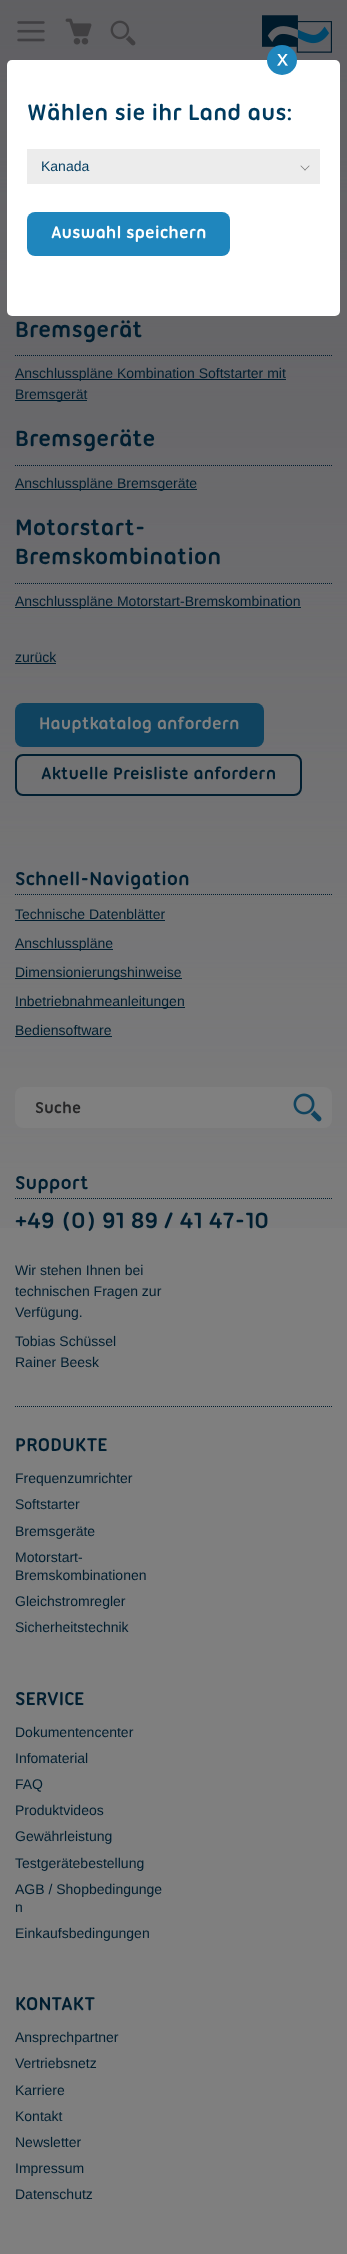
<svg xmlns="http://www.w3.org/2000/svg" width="347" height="2254">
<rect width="100%" height="100%" fill="#7f7f7f"/>
<image x="0" y="0" width="347" height="1228" href="media/1.png"/>
<rect x="7" y="60" width="333" height="256" rx="5" fill="#fff"/>
<image x="262" y="15" width="70" height="38" href="media/7.png"/>
<circle cx="282" cy="60" r="15" fill="#1f86bd"/>
<image x="277" y="54" width="11" height="12" href="media/2.png"/>
<text x="27" y="120" style="font-family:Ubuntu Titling;font-size:24px;font-weight:bold;fill:#003b5f">Wählen sie ihr Land aus:</text>
<rect x="27" y="149" width="293" height="35" fill="#ececec"/>
<image x="300" y="165" width="10" height="6" href="media/3.png"/>
<text x="41" y="171" style="font-family:Liberation Sans;font-size:14px;fill:#003b5f">Kanada</text>
<rect x="27" y="212" width="203" height="44" rx="8" fill="#1f86bd"/>
<text x="51" y="238" style="font-family:Ubuntu Titling;font-size:18px;font-weight:bold;fill:#fff">Auswahl speichern</text>
<image x="17" y="21" width="28" height="21" href="media/4.png"/>
<image x="65" y="18" width="27" height="27" href="media/5.png"/>
<image x="110" y="20" width="26" height="26" href="media/6.png"/>
<text x="15" y="337" style="font-family:Ubuntu Titling;font-size:24px;font-weight:bold;fill:#001e30">Bremsgerät</text>
<path d="M15 355.5h317" fill="none" stroke="#001e30" stroke-dasharray="1 1"/>
<rect x="15" y="379" width="271" height="1" fill="#001e30"/>
<text x="15" y="378" style="font-family:Liberation Sans;font-size:14px;fill:#001e30">Anschlusspläne Kombination Softstarter mit</text>
<rect x="15" y="400" width="72" height="1" fill="#001e30"/>
<text x="15" y="399" style="font-family:Liberation Sans;font-size:14px;fill:#001e30">Bremsgerät</text>
<text x="15" y="446" style="font-family:Ubuntu Titling;font-size:24px;font-weight:bold;fill:#001e30">Bremsgeräte</text>
<path d="M15 465.5h317" fill="none" stroke="#001e30" stroke-dasharray="1 1"/>
<rect x="15" y="489" width="182" height="1" fill="#001e30"/>
<text x="15" y="488" style="font-family:Liberation Sans;font-size:14px;fill:#001e30">Anschlusspläne Bremsgeräte</text>
<text x="15" y="535" style="font-family:Ubuntu Titling;font-size:24px;font-weight:bold;fill:#001e30">Motorstart-</text>
<text x="15" y="564" style="font-family:Ubuntu Titling;font-size:24px;font-weight:bold;fill:#001e30">Bremskombination</text>
<path d="M15 583.5h317" fill="none" stroke="#001e30" stroke-dasharray="1 1"/>
<rect x="15" y="607" width="286" height="1" fill="#001e30"/>
<text x="15" y="606" style="font-family:Liberation Sans;font-size:14px;fill:#001e30">Anschlusspläne Motorstart-Bremskombination</text>
<text x="15" y="662" style="font-family:Liberation Sans;font-size:14px;fill:#001e30">zurück</text>
<rect x="15" y="663" width="41" height="1" fill="#001e30"/>
<rect x="15" y="703" width="249" height="44" rx="8" fill="#10435f"/>
<text x="39" y="729" style="font-family:Ubuntu Titling;font-size:18px;font-weight:bold;fill:#808080">Hauptkatalog anfordern</text>
<rect x="16" y="755" width="285" height="40" rx="7" fill="none" stroke="#001e30" stroke-width="2"/>
<text x="41" y="779" style="font-family:Ubuntu Titling;font-size:18px;font-weight:bold;fill:#001e30">Aktuelle Preisliste anfordern</text>
<path d="M15 894.5h317" fill="none" stroke="#001e30" stroke-dasharray="1 1"/>
<text x="15" y="885" style="font-family:Ubuntu Titling;font-size:20px;font-weight:bold;fill:#001e30">Schnell-Navigation</text>
<text x="15" y="919" style="font-family:Liberation Sans;font-size:14px;fill:#001e30">Technische Datenblätter</text>
<rect x="15" y="920" width="150" height="1" fill="#001e30"/>
<rect x="15" y="949" width="98" height="1" fill="#001e30"/>
<text x="15" y="948" style="font-family:Liberation Sans;font-size:14px;fill:#001e30">Anschlusspläne</text>
<rect x="15" y="978" width="167" height="1" fill="#001e30"/>
<text x="15" y="977" style="font-family:Liberation Sans;font-size:14px;fill:#001e30">Dimensionierungshinweise</text>
<rect x="15" y="1007" width="170" height="1" fill="#001e30"/>
<text x="15" y="1006" style="font-family:Liberation Sans;font-size:14px;fill:#001e30">Inbetriebnahmeanleitungen</text>
<text x="15" y="1035" style="font-family:Liberation Sans;font-size:14px;fill:#001e30">Bediensoftware</text>
<rect x="15" y="1036" width="97" height="1" fill="#001e30"/>
<rect x="15" y="1087" width="317" height="41" rx="8" fill="#808080"/>
<text x="35" y="1113" style="font-family:Ubuntu Titling;font-size:17px;font-weight:bold;fill:#262627">Suche</text>
<image x="293" y="1093" width="29" height="29" href="media/8.png"/>
<path d="M15 1198.5h317" fill="none" stroke="#001e30" stroke-dasharray="1 1"/>
<text x="15" y="1189" style="font-family:Ubuntu Titling;font-size:20px;font-weight:bold;fill:#001e30">Support</text>
<text x="15" y="1228" style="font-family:Ubuntu Titling;font-size:24px;font-weight:bold;fill:#001e30">+49 (0) 91 89 / 41 47-10</text>
<text x="15" y="1275" style="font-family:Liberation Sans;font-size:14px;fill:#001e30">Wir stehen Ihnen bei</text>
<text x="15" y="1296" style="font-family:Liberation Sans;font-size:14px;fill:#001e30">technischen Fragen zur</text>
<text x="15" y="1317" style="font-family:Liberation Sans;font-size:14px;fill:#001e30">Verfügung.</text>
<text x="15" y="1346" style="font-family:Liberation Sans;font-size:14px;fill:#001e30">Tobias Schüssel</text>
<text x="15" y="1367" style="font-family:Liberation Sans;font-size:14px;fill:#001e30">Rainer Beesk</text>
<path d="M15 1406.5h317" fill="none" stroke="#001e30" stroke-dasharray="1 1"/>
<text x="15" y="1451" style="font-family:Ubuntu Titling;font-size:20px;font-weight:bold;fill:#001e30">PRODUKTE</text>
<text x="15" y="1483" style="font-family:Liberation Sans;font-size:14px;fill:#001e30">Frequenzumrichter</text>
<text x="15" y="1509" style="font-family:Liberation Sans;font-size:14px;fill:#001e30">Softstarter</text>
<text x="15" y="1536" style="font-family:Liberation Sans;font-size:14px;fill:#001e30">Bremsgeräte</text>
<text x="15" y="1562" style="font-family:Liberation Sans;font-size:14px;fill:#001e30">Motorstart-</text>
<text x="15" y="1580" style="font-family:Liberation Sans;font-size:14px;fill:#001e30">Bremskombinationen</text>
<text x="15" y="1606" style="font-family:Liberation Sans;font-size:14px;fill:#001e30">Gleichstromregler</text>
<text x="15" y="1632" style="font-family:Liberation Sans;font-size:14px;fill:#001e30">Sicherheitstechnik</text>
<text x="15" y="1705" style="font-family:Ubuntu Titling;font-size:20px;font-weight:bold;fill:#001e30">SERVICE</text>
<text x="15" y="1737" style="font-family:Liberation Sans;font-size:14px;fill:#001e30">Dokumentencenter</text>
<text x="15" y="1763" style="font-family:Liberation Sans;font-size:14px;fill:#001e30">Infomaterial</text>
<text x="15" y="1789" style="font-family:Liberation Sans;font-size:14px;fill:#001e30">FAQ</text>
<text x="15" y="1815" style="font-family:Liberation Sans;font-size:14px;fill:#001e30">Produktvideos</text>
<text x="15" y="1841" style="font-family:Liberation Sans;font-size:14px;fill:#001e30">Gewährleistung</text>
<text x="15" y="1868" style="font-family:Liberation Sans;font-size:14px;fill:#001e30">Testgerätebestellung</text>
<text x="15" y="1894" style="font-family:Liberation Sans;font-size:14px;fill:#001e30">AGB / Shopbedingunge</text>
<text x="15" y="1912" style="font-family:Liberation Sans;font-size:14px;fill:#001e30">n</text>
<text x="15" y="1938" style="font-family:Liberation Sans;font-size:14px;fill:#001e30">Einkaufsbedingungen</text>
<text x="15" y="2010" style="font-family:Ubuntu Titling;font-size:20px;font-weight:bold;fill:#001e30">KONTAKT</text>
<text x="15" y="2042" style="font-family:Liberation Sans;font-size:14px;fill:#001e30">Ansprechpartner</text>
<text x="15" y="2068" style="font-family:Liberation Sans;font-size:14px;fill:#001e30">Vertriebsnetz</text>
<text x="15" y="2095" style="font-family:Liberation Sans;font-size:14px;fill:#001e30">Karriere</text>
<text x="15" y="2121" style="font-family:Liberation Sans;font-size:14px;fill:#001e30">Kontakt</text>
<text x="15" y="2147" style="font-family:Liberation Sans;font-size:14px;fill:#001e30">Newsletter</text>
<text x="15" y="2173" style="font-family:Liberation Sans;font-size:14px;fill:#001e30">Impressum</text>
<text x="15" y="2199" style="font-family:Liberation Sans;font-size:14px;fill:#001e30">Datenschutz</text>
</svg>
